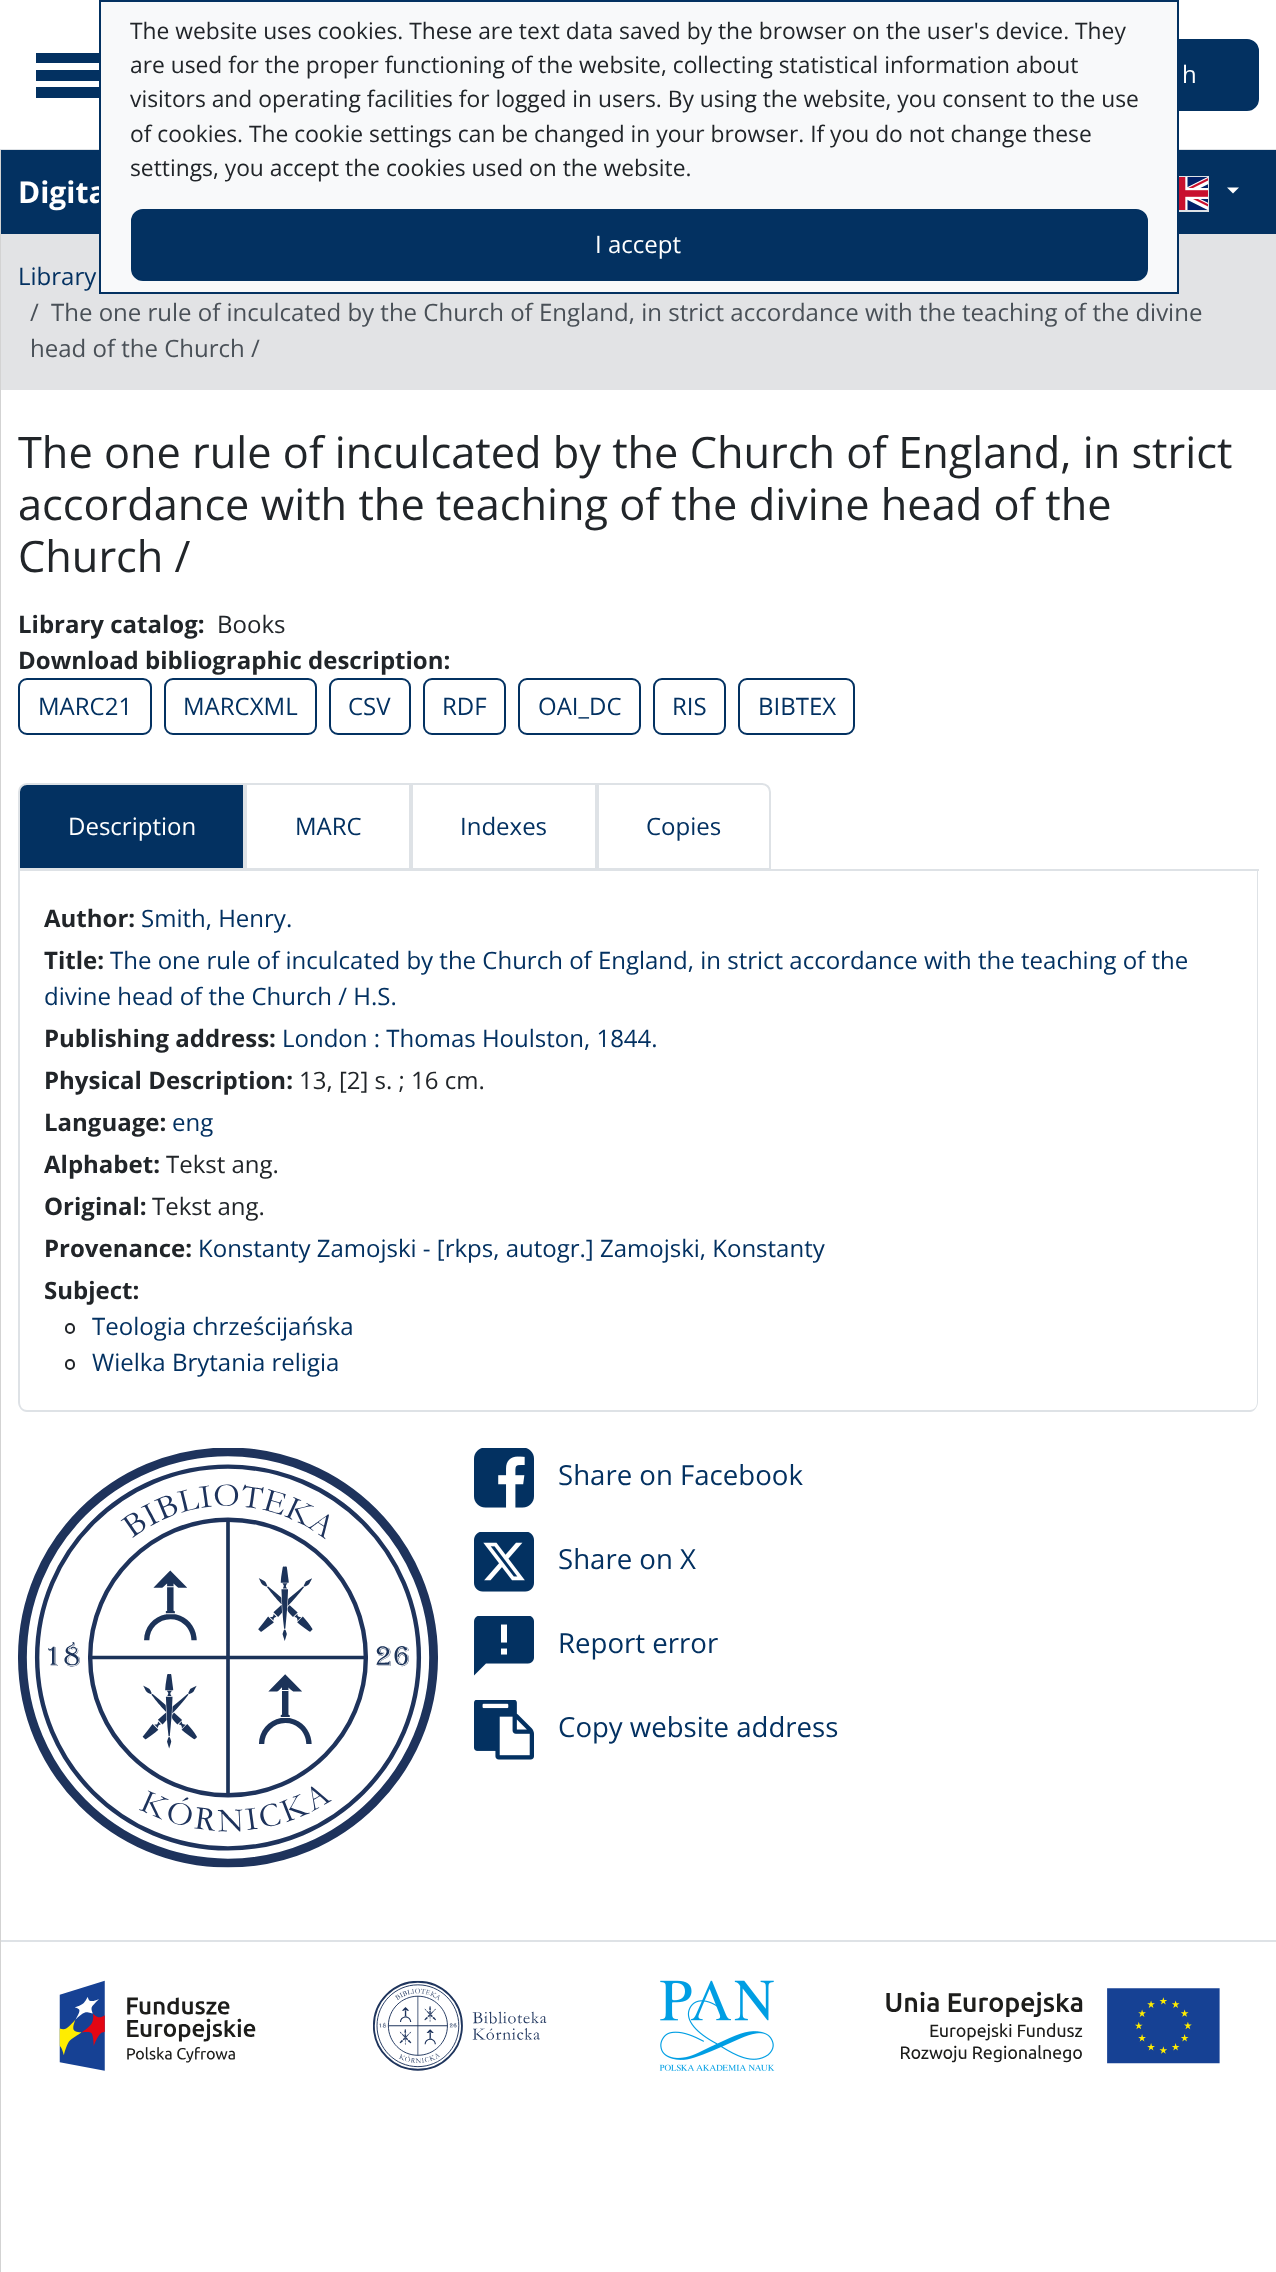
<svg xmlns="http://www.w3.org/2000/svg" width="1276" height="2272">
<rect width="100%" height="100%" fill="#fff"/>
<rect y="149" width="1276" height="1" fill="#dee2e6"/>
<rect x="1060" y="40" width="198" height="70" rx="11" fill="#033161" stroke="#033161" stroke-width="2"/>
<rect x="1" y="150" width="1275" height="84" fill="#033161"/>
<text x="18" y="203" style="font-family:Open Sans;font-size:30px;font-weight:bold;fill:#fff">Digita</text>
<rect x="1156" y="177" width="52" height="34" fill="none" stroke="#dee2e6" stroke-width="2"/>
<rect x="1" y="234" width="1275" height="156" fill="#e2e3e5"/>
<rect x="100" y="1" width="1078" height="292" fill="#f8f9fa" stroke="#033161" stroke-width="2"/>
<text x="130" y="39" style="font-family:Open Sans;font-size:22.8px;fill:#212529">The website uses cookies. These are text data saved by the browser on the user's device. They</text>
<text x="130" y="73" style="font-family:Open Sans;font-size:22.8px;fill:#212529">are used for the proper functioning of the website, collecting statistical information about</text>
<text x="130" y="107" style="font-family:Open Sans;font-size:22.8px;fill:#212529">visitors and operating facilities for logged in users. By using the website, you consent to the use</text>
<text x="130" y="142" style="font-family:Open Sans;font-size:22.8px;fill:#212529">of cookies. The cookie settings can be changed in your browser. If you do not change these</text>
<text x="130" y="176" style="font-family:Open Sans;font-size:22.8px;fill:#212529">settings, you accept the cookies used on the website.</text>
<rect x="132" y="210" width="1015" height="70" rx="11" fill="#033161" stroke="#033161" stroke-width="2"/>
<text x="595" y="253" style="font-family:Open Sans;font-size:24px;fill:#fff">I accept</text>
<rect x="36" y="70" width="63" height="11" fill="#033161"/>
<rect x="36" y="87" width="63" height="11" fill="#033161"/>
<rect x="36" y="53" width="63" height="10" fill="#033161"/>
<rect y="1940" width="1276" height="2" fill="#dee2e6"/>
<rect y="150" width="1" height="2122" fill="#d3d3d3"/>
<text x="1182" y="83" style="font-family:Open Sans;font-size:24px;fill:#fff">h</text>
<image x="1179" y="177" width="29" height="33" href="media/1.png"/>
<path d="M1227 187.5h12l-6 6z" fill="#fff"/>
<text x="18" y="285" style="font-family:Open Sans;font-size:24px;fill:#033161">Library</text>
<text x="30" y="321" style="font-family:Open Sans;font-size:24px;fill:#495057">/</text>
<text x="51" y="321" style="font-family:Open Sans;font-size:24px;fill:#495057">The one rule of inculcated by the Church of England, in strict accordance with the teaching of the divine</text>
<text x="30" y="357" style="font-family:Open Sans;font-size:24px;fill:#495057">head of the Church /</text>
<text x="18" y="468" style="font-family:Open Sans;font-size:43.3px;fill:#212529">The one rule of inculcated by the Church of England, in strict</text>
<text x="18" y="520" style="font-family:Open Sans;font-size:43.3px;fill:#212529">accordance with the teaching of the divine head of the</text>
<text x="18" y="572" style="font-family:Open Sans;font-size:43.3px;fill:#212529">Church /</text>
<text x="18" y="633" style="font-family:Open Sans;font-size:24px;font-weight:bold;fill:#212529">Library catalog:</text>
<text x="217" y="633" style="font-family:Open Sans;font-size:24px;fill:#212529">Books</text>
<text x="18" y="669" style="font-family:Open Sans;font-size:24px;font-weight:bold;fill:#212529">Download bibliographic description:</text>
<rect x="19" y="679" width="132" height="55" rx="8" fill="none" stroke="#033161" stroke-width="2"/>
<text x="38" y="715" style="font-family:Open Sans;font-size:24px;fill:#033161">MARC21</text>
<rect x="165" y="679" width="151" height="55" rx="8" fill="none" stroke="#033161" stroke-width="2"/>
<text x="183" y="715" style="font-family:Open Sans;font-size:24px;fill:#033161">MARCXML</text>
<rect x="330" y="679" width="80" height="55" rx="8" fill="none" stroke="#033161" stroke-width="2"/>
<text x="348" y="715" style="font-family:Open Sans;font-size:24px;fill:#033161">CSV</text>
<rect x="424" y="679" width="81" height="55" rx="8" fill="none" stroke="#033161" stroke-width="2"/>
<text x="442" y="715" style="font-family:Open Sans;font-size:24px;fill:#033161">RDF</text>
<rect x="519" y="679" width="121" height="55" rx="8" fill="none" stroke="#033161" stroke-width="2"/>
<text x="538" y="715" style="font-family:Open Sans;font-size:24px;fill:#033161">OAI_DC</text>
<rect x="654" y="679" width="71" height="55" rx="8" fill="none" stroke="#033161" stroke-width="2"/>
<text x="672" y="715" style="font-family:Open Sans;font-size:24px;fill:#033161">RIS</text>
<rect x="739" y="679" width="115" height="55" rx="8" fill="none" stroke="#033161" stroke-width="2"/>
<text x="758" y="715" style="font-family:Open Sans;font-size:24px;fill:#033161">BIBTEX</text>
<rect x="18" y="869" width="1241" height="2" fill="#dee2e6"/>
<path d="M27 784h217v85h-225v-77c0-4.5 3.5-8 8-8z" fill="#033161" stroke="#dee2e6" stroke-width="2"/>
<text x="68" y="835" style="font-family:Open Sans;font-size:24px;fill:#fff">Description</text>
<rect x="246" y="784" width="164" height="85" fill="none" stroke="#dee2e6" stroke-width="2"/>
<text x="295" y="835" style="font-family:Open Sans;font-size:24px;fill:#033161">MARC</text>
<rect x="412" y="784" width="184" height="85" fill="none" stroke="#dee2e6" stroke-width="2"/>
<text x="460" y="835" style="font-family:Open Sans;font-size:24px;fill:#033161">Indexes</text>
<path d="M598 784h164c4.5 0 8 3.5 8 8v77h-172z" fill="none" stroke="#dee2e6" stroke-width="2"/>
<text x="646" y="835" style="font-family:Open Sans;font-size:24px;fill:#033161">Copies</text>
<path d="M18 870h1240v532c0 5-4 10-8 10h-1223c-5 0-9-5-9-10zm2 0h1237v532c0 5-3 8-7 8h-1223c-4 0-7-3-7-8z" fill="#dee2e6" fill-rule="evenodd"/>
<text x="44" y="927" style="font-family:Open Sans;font-size:24px;font-weight:bold;fill:#212529">Author:</text>
<text x="141" y="927" style="font-family:Open Sans;font-size:24px;fill:#033161">Smith, Henry.</text>
<text x="44" y="969" style="font-family:Open Sans;font-size:24px;font-weight:bold;fill:#212529">Title:</text>
<text x="110" y="969" style="font-family:Open Sans;font-size:24px;fill:#033161">The one rule of inculcated by the Church of England, in strict accordance with the teaching of the</text>
<text x="44" y="1005" style="font-family:Open Sans;font-size:24px;fill:#033161">divine head of the Church / H.S.</text>
<text x="44" y="1047" style="font-family:Open Sans;font-size:24px;font-weight:bold;fill:#212529">Publishing address:</text>
<text x="282" y="1047" style="font-family:Open Sans;font-size:24px;fill:#033161">London : Thomas Houlston, 1844.</text>
<text x="44" y="1089" style="font-family:Open Sans;font-size:24px;font-weight:bold;fill:#212529">Physical Description:</text>
<text x="299" y="1089" style="font-family:Open Sans;font-size:24px;fill:#212529">13, [2] s. ; 16 cm.</text>
<text x="44" y="1131" style="font-family:Open Sans;font-size:24px;font-weight:bold;fill:#212529">Language:</text>
<text x="172" y="1131" style="font-family:Open Sans;font-size:24px;fill:#033161">eng</text>
<text x="44" y="1173" style="font-family:Open Sans;font-size:24px;font-weight:bold;fill:#212529">Alphabet:</text>
<text x="166" y="1173" style="font-family:Open Sans;font-size:24px;fill:#212529">Tekst ang.</text>
<text x="44" y="1215" style="font-family:Open Sans;font-size:24px;font-weight:bold;fill:#212529">Original:</text>
<text x="152" y="1215" style="font-family:Open Sans;font-size:24px;fill:#212529">Tekst ang.</text>
<text x="44" y="1257" style="font-family:Open Sans;font-size:24px;font-weight:bold;fill:#212529">Provenance:</text>
<text x="198" y="1257" style="font-family:Open Sans;font-size:24px;fill:#033161">Konstanty Zamojski - [rkps, autogr.] Zamojski, Konstanty</text>
<text x="44" y="1299" style="font-family:Open Sans;font-size:24px;font-weight:bold;fill:#212529">Subject:</text>
<rect x="66" y="1324" width="8" height="9" rx="4" fill="none" stroke="#212529" stroke-width="2"/>
<text x="92" y="1335" style="font-family:Open Sans;font-size:24px;fill:#033161">Teologia chrześcijańska</text>
<rect x="66" y="1360" width="8" height="9" rx="4" fill="none" stroke="#212529" stroke-width="2"/>
<text x="92" y="1371" style="font-family:Open Sans;font-size:24px;fill:#033161">Wielka Brytania religia</text>
<image x="18" y="1448" width="420" height="420" href="media/2.png"/>
<image x="474" y="1448" width="60" height="60" href="media/3.png"/>
<text x="558" y="1485" style="font-family:Open Sans;font-size:27.6px;fill:#033161">Share on Facebook</text>
<image x="474" y="1532" width="60" height="60" href="media/4.png"/>
<text x="558" y="1569" style="font-family:Open Sans;font-size:27.6px;fill:#033161">Share on X</text>
<image x="474" y="1616" width="60" height="60" href="media/5.png"/>
<text x="558" y="1653" style="font-family:Open Sans;font-size:27.6px;fill:#033161">Report error</text>
<image x="474" y="1700" width="60" height="60" href="media/6.png"/>
<text x="558" y="1737" style="font-family:Open Sans;font-size:27.6px;fill:#033161">Copy website address</text>
<image x="59" y="1980" width="197" height="91" href="media/7.png"/>
<image x="373" y="1980" width="174" height="91" href="media/8.png"/>
<image x="659" y="1980" width="116" height="91" href="media/9.png"/>
<image x="886" y="1988" width="334" height="76" href="media/10.png"/>
</svg>
